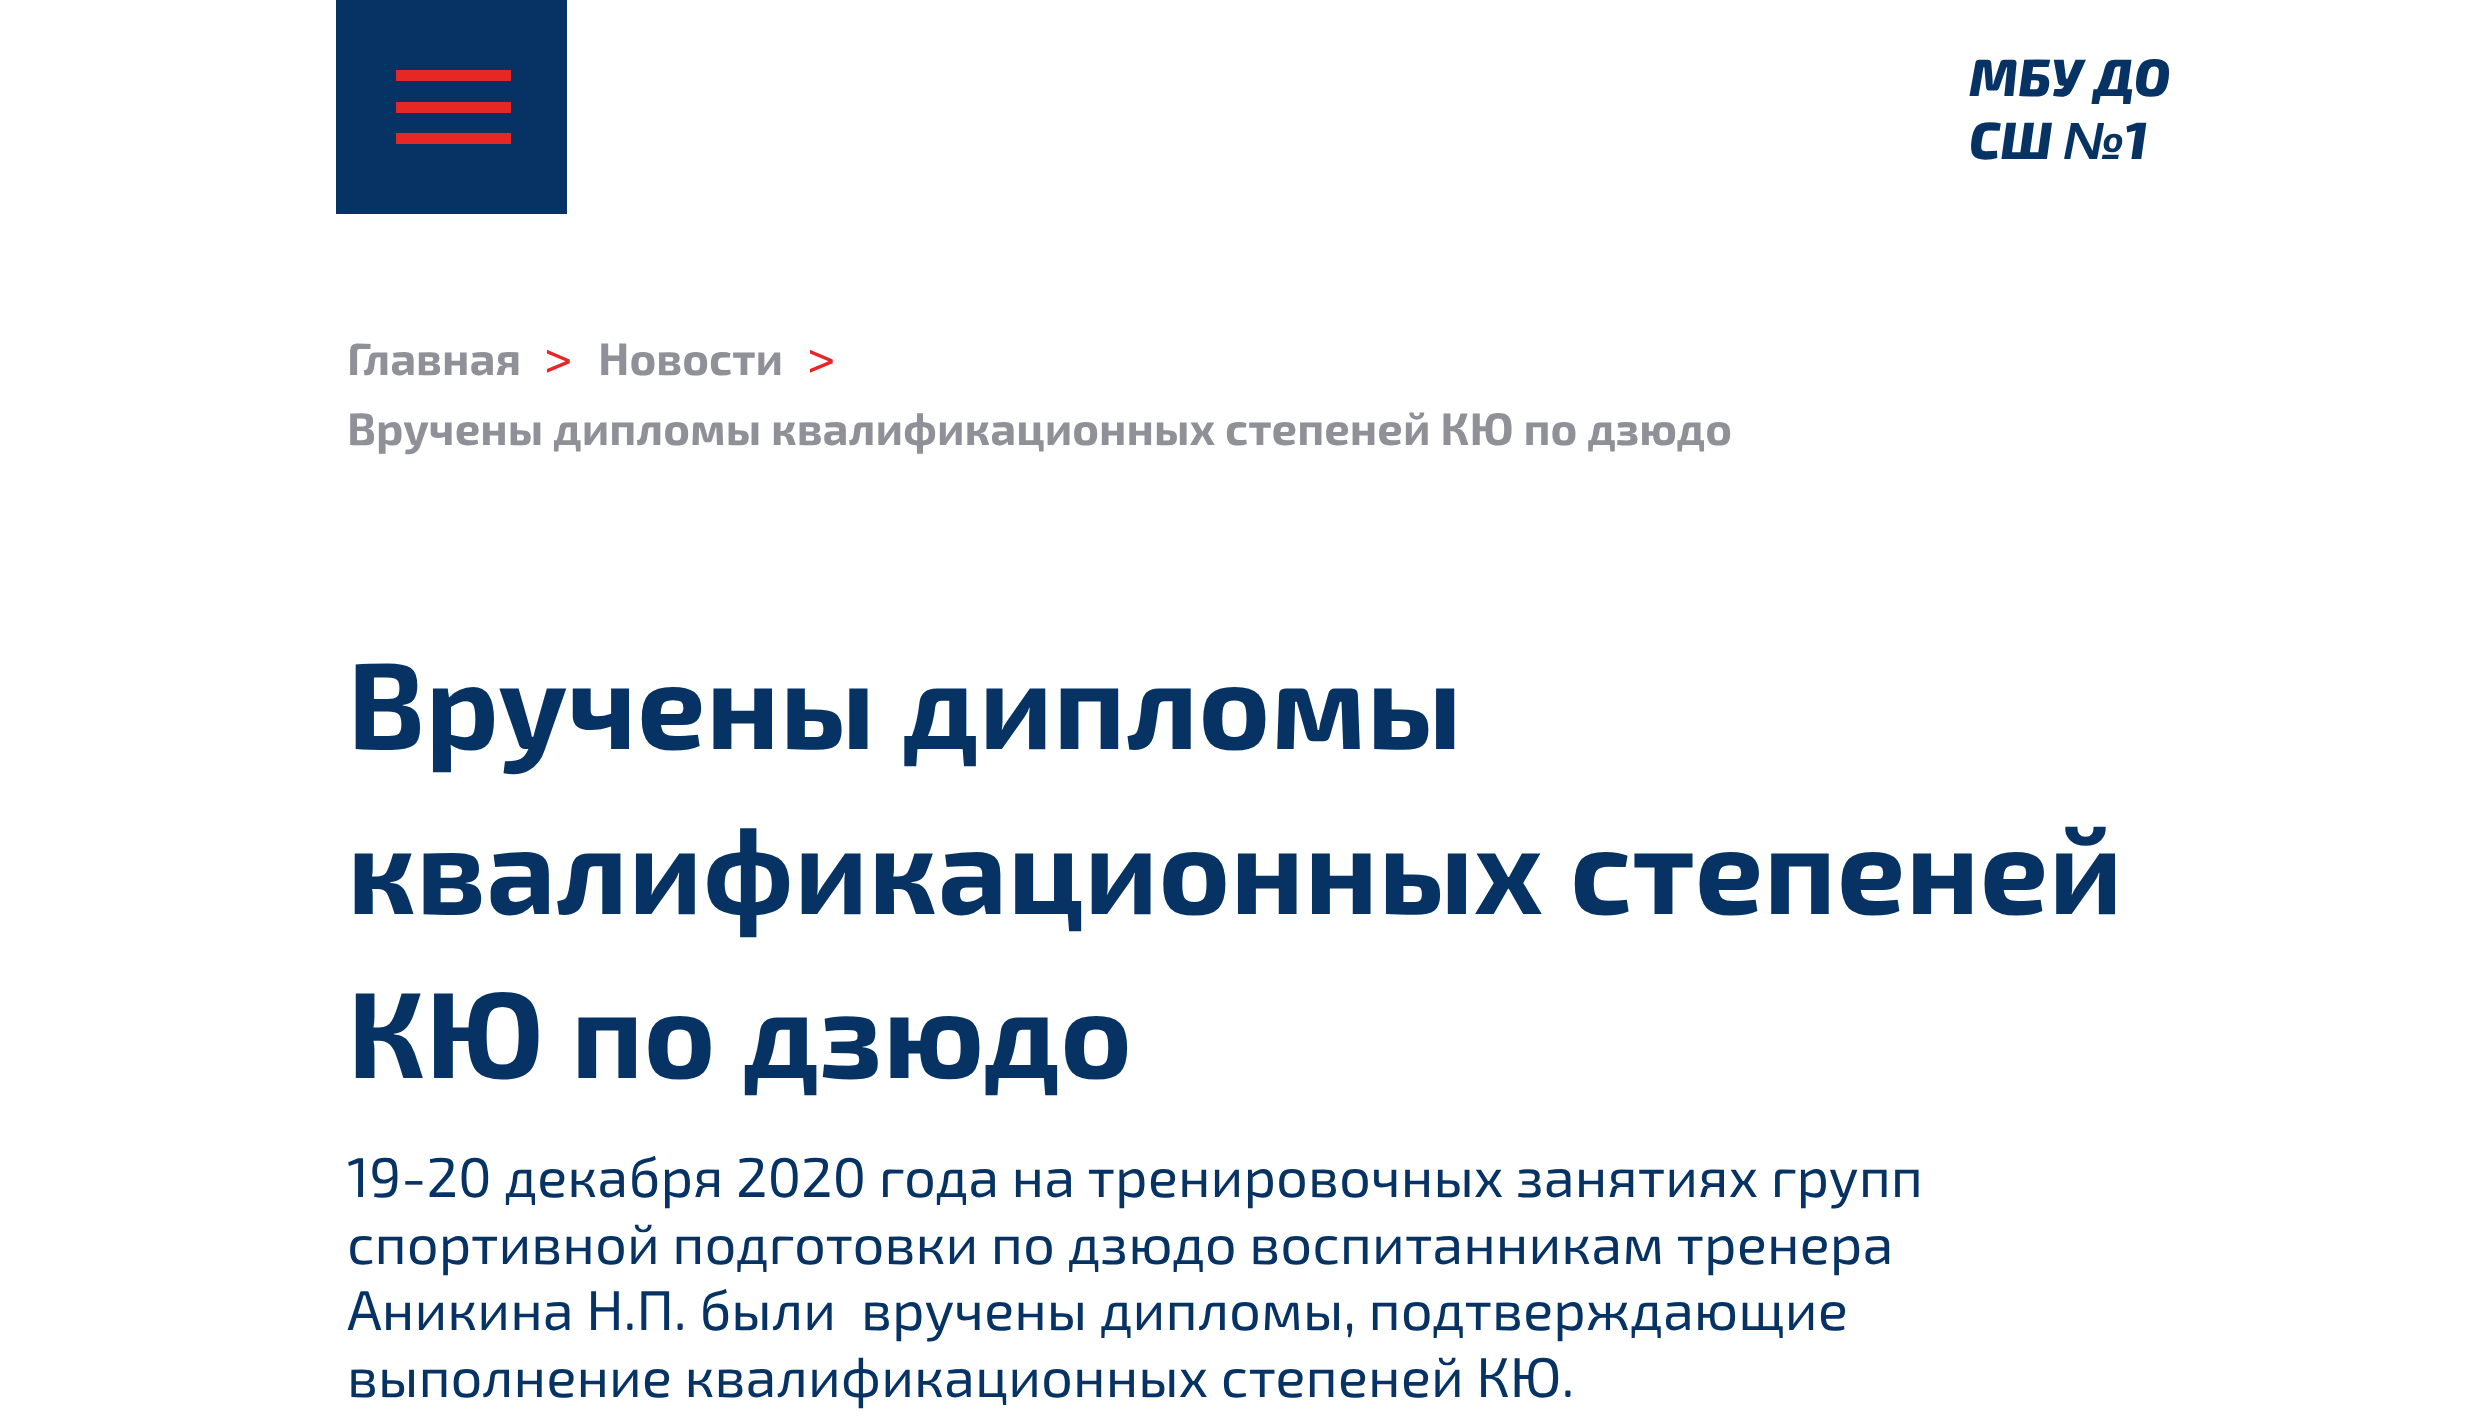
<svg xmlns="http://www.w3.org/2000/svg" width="2475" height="1425">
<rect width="100%" height="100%" fill="#fff"/>
<rect x="336" width="231" height="214" fill="#063364"/>
<rect x="396" y="70" width="115" height="11" fill="#e72626"/>
<rect x="396" y="102" width="115" height="11" fill="#e72626"/>
<rect x="396" y="133" width="115" height="11" fill="#e72626"/>
<text x="1969" y="96" style="font-family:'Exo 2';font-size:52.5px;font-weight:800;font-style:italic;fill:#063364">МБУ ДО</text>
<text x="1969" y="159" style="font-family:'Exo 2';font-size:52.5px;font-weight:800;font-style:italic;fill:#063364">СШ</text>
<text x="2063" y="159" style="font-family:Liberation Sans;font-size:52.5px;font-weight:bold;font-style:italic;fill:#063364">№</text>
<text x="2124" y="159" style="font-family:'Exo 2';font-size:52.5px;font-weight:800;font-style:italic;fill:#063364">1</text>
<text x="347" y="375" style="font-family:'Exo 2';font-size:45.5px;font-weight:bold;fill:#909198">Главная</text>
<text x="543" y="378" style="font-family:'Exo 2';font-size:56px;fill:#e72626">&gt;</text>
<text x="598" y="375" style="font-family:'Exo 2';font-size:45.5px;font-weight:bold;fill:#909198">Новости</text>
<text x="806" y="378" style="font-family:'Exo 2';font-size:56px;fill:#e72626">&gt;</text>
<text x="347" y="445" style="font-family:'Exo 2';font-size:45.5px;font-weight:bold;fill:#909198">Вручены дипломы квалификационных степеней КЮ по дзюдо</text>
<text x="347" y="749" style="font-family:'Exo 2';font-size:122.5px;font-weight:bold;fill:#063364">Вручены дипломы</text>
<text x="347" y="914" style="font-family:'Exo 2';font-size:122.5px;font-weight:bold;fill:#063364">квалификационных степеней</text>
<text x="347" y="1078" style="font-family:'Exo 2';font-size:122.5px;font-weight:bold;fill:#063364">КЮ по дзюдо</text>
<text x="347" y="1197" style="font-family:'Exo 2';font-size:56px;fill:#063364">19-20 декабря 2020 года на тренировочных занятиях групп</text>
<text x="347" y="1264" style="font-family:'Exo 2';font-size:56px;fill:#063364">спортивной подготовки по дзюдо воспитанникам тренера</text>
<text x="347" y="1330" style="font-family:'Exo 2';font-size:56px;fill:#063364" xml:space="preserve">Аникина Н.П. были  вручены дипломы, подтверждающие</text>
<text x="347" y="1397" style="font-family:'Exo 2';font-size:56px;fill:#063364">выполнение квалификационных степеней КЮ.</text>
</svg>
